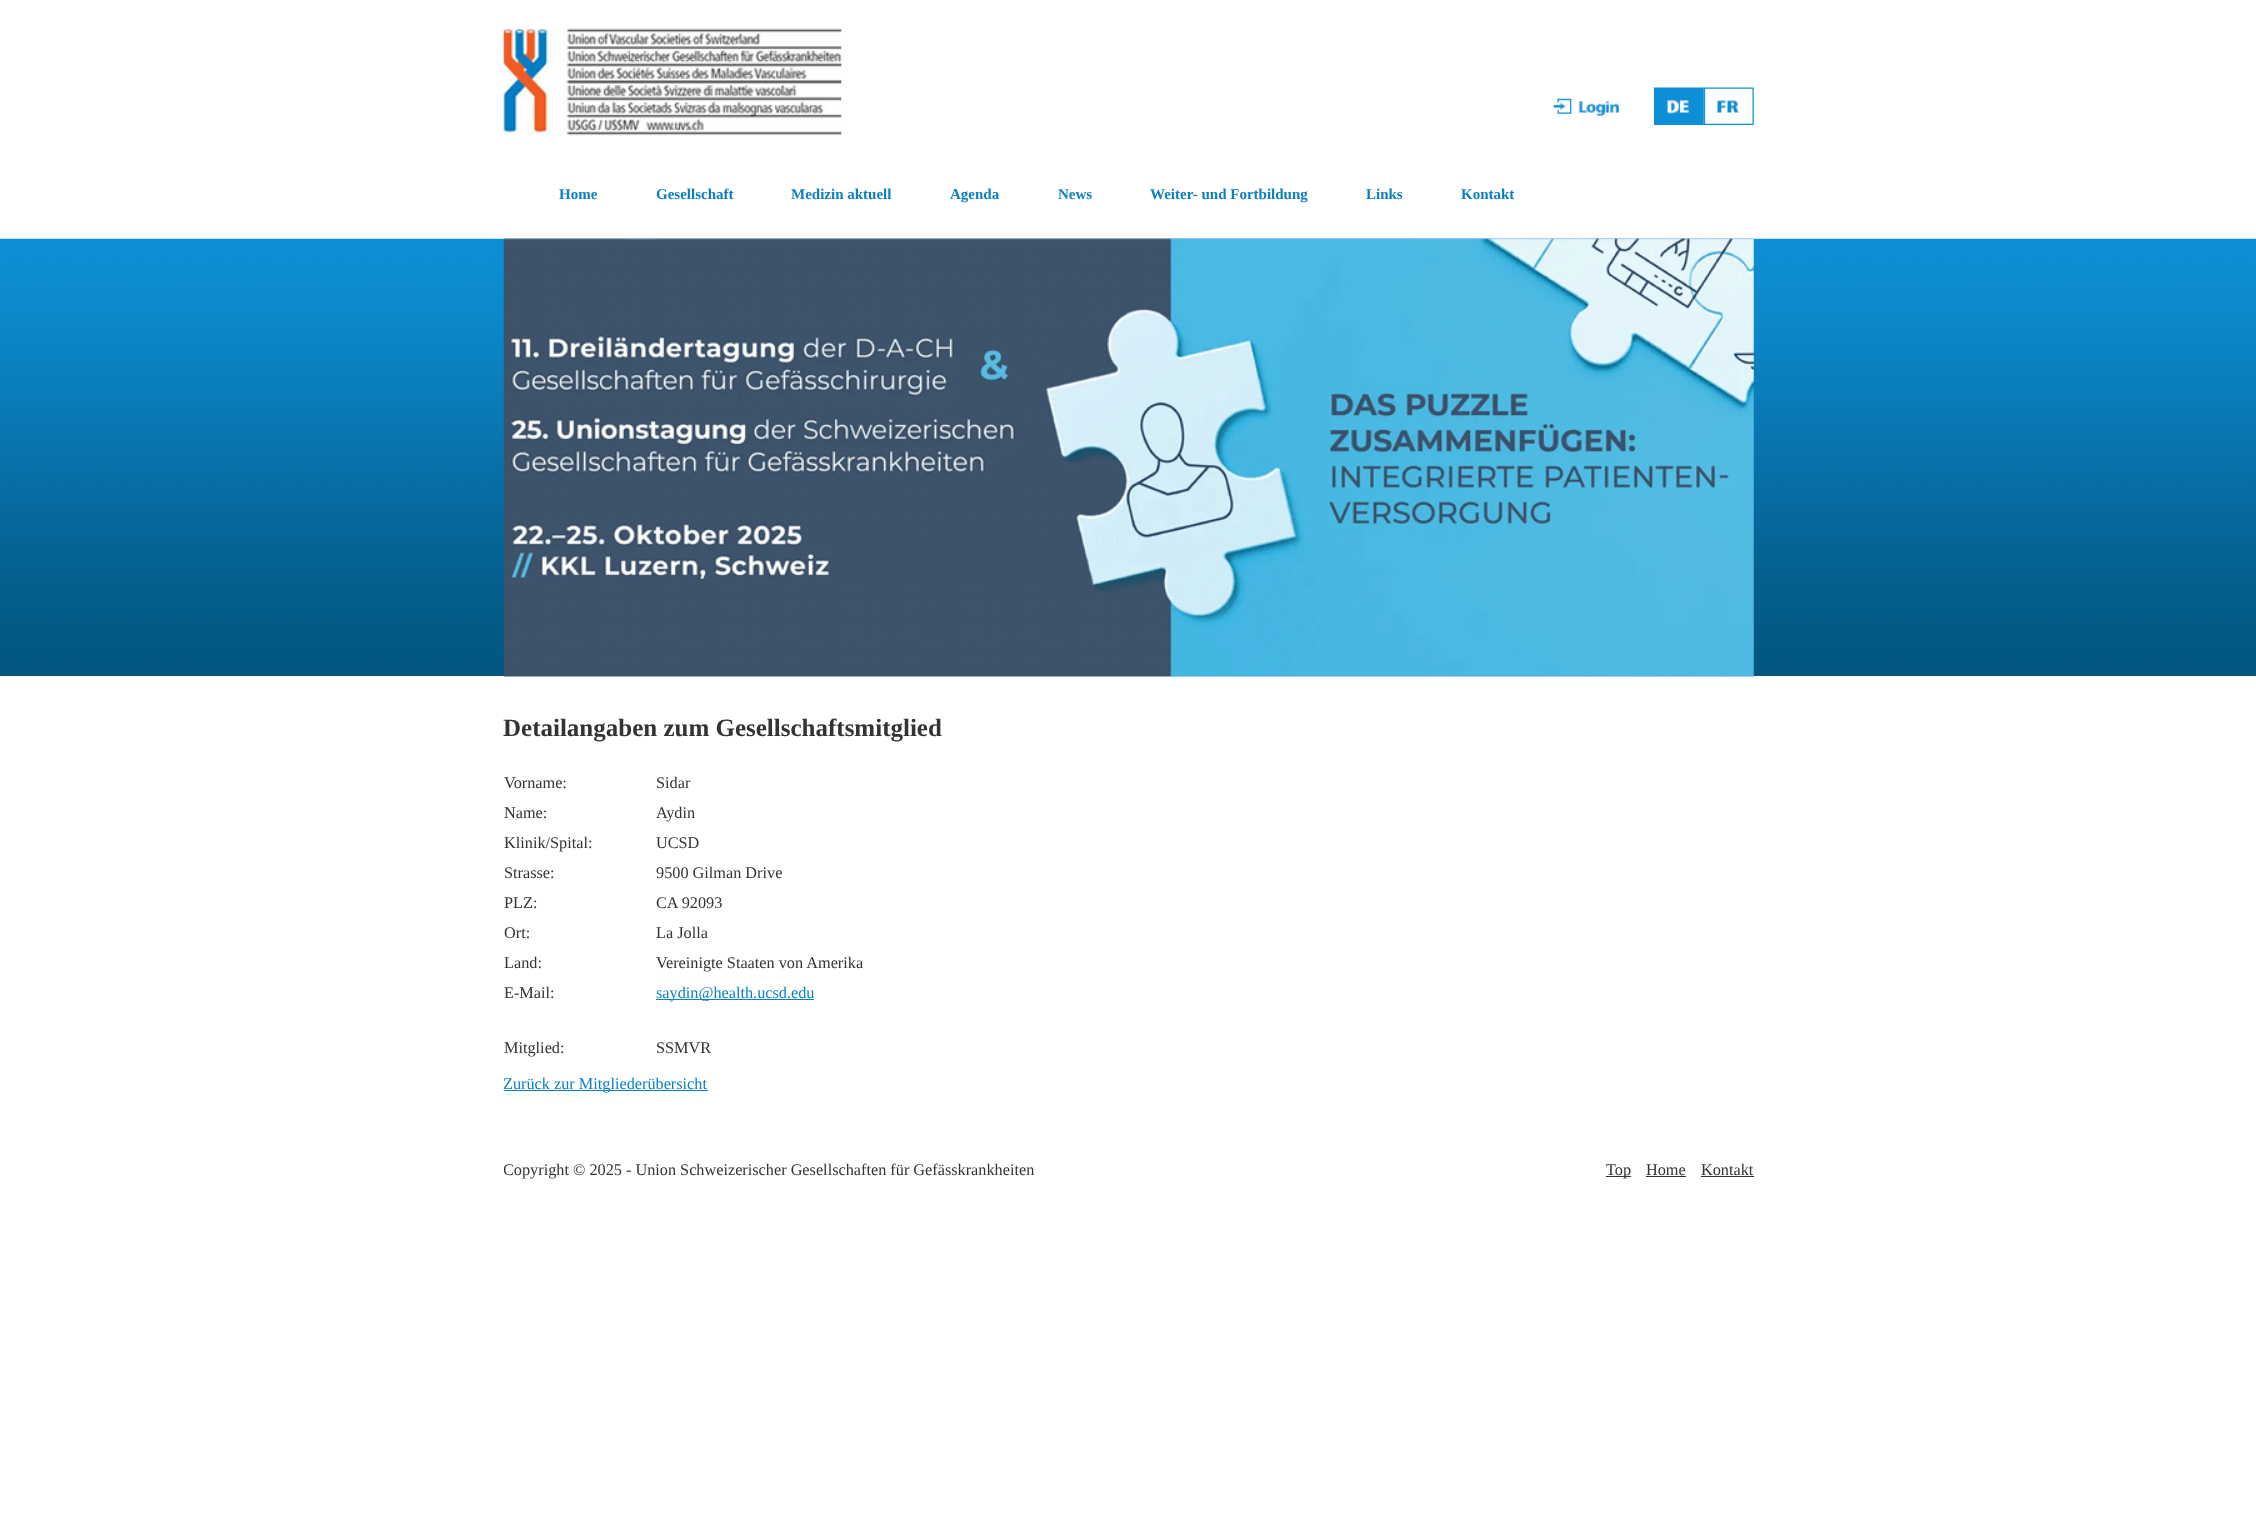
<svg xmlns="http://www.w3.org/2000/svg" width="2256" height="1516">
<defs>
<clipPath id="clip1"><rect x="504" y="1131" width="1250" height="78"/></clipPath>
</defs>
<rect width="100%" height="100%" fill="#fff"/>
<image x="503" y="28" width="339" height="108" href="media/1.png"/>
<image x="1703" y="87" width="51" height="38" href="media/4.png"/>
<image x="1653" y="87" width="51" height="38" href="media/3.png"/>
<image x="1553" y="87" width="101" height="38" href="media/2.png"/>
<text x="559" y="199" style="font-family:Liberation Serif;font-size:15px;font-weight:bold;fill:#0c80bf">Home</text>
<text x="656" y="199" style="font-family:Liberation Serif;font-size:15px;font-weight:bold;fill:#0c80bf">Gesellschaft</text>
<text x="791" y="199" style="font-family:Liberation Serif;font-size:15px;font-weight:bold;fill:#0c80bf">Medizin aktuell</text>
<text x="950" y="199" style="font-family:Liberation Serif;font-size:15px;font-weight:bold;fill:#0c80bf">Agenda</text>
<text x="1058" y="199" style="font-family:Liberation Serif;font-size:15px;font-weight:bold;fill:#0c80bf">News</text>
<text x="1150" y="199" style="font-family:Liberation Serif;font-size:15px;font-weight:bold;fill:#0c80bf">Weiter- und Fortbildung</text>
<text x="1366" y="199" style="font-family:Liberation Serif;font-size:15px;font-weight:bold;fill:#0c80bf">Links</text>
<text x="1461" y="199" style="font-family:Liberation Serif;font-size:15px;font-weight:bold;fill:#0c80bf">Kontakt</text>
<image x="0" y="238" width="2256" height="438" href="media/5.png"/>
<image x="503" y="238" width="1251" height="439" href="media/6.png"/>
<image x="503" y="238" width="1251" height="439" href="media/7.png"/>
<text x="503" y="736" style="font-family:Liberation Serif;font-size:25px;font-weight:bold;fill:#333">Detailangaben zum Gesellschaftsmitglied</text>
<text x="504" y="788" style="font-family:Liberation Serif;font-size:16.25px;fill:#333">Vorname:</text>
<text x="656" y="788" style="font-family:Liberation Serif;font-size:16.25px;fill:#333">Sidar</text>
<text x="504" y="818" style="font-family:Liberation Serif;font-size:16.25px;fill:#333">Name:</text>
<text x="656" y="818" style="font-family:Liberation Serif;font-size:16.25px;fill:#333">Aydin</text>
<text x="504" y="848" style="font-family:Liberation Serif;font-size:16.25px;fill:#333">Klinik/Spital:</text>
<text x="656" y="848" style="font-family:Liberation Serif;font-size:16.25px;fill:#333">UCSD</text>
<text x="504" y="878" style="font-family:Liberation Serif;font-size:16.25px;fill:#333">Strasse:</text>
<text x="656" y="878" style="font-family:Liberation Serif;font-size:16.25px;fill:#333">9500 Gilman Drive</text>
<text x="504" y="908" style="font-family:Liberation Serif;font-size:16.25px;fill:#333">PLZ:</text>
<text x="656" y="908" style="font-family:Liberation Serif;font-size:16.25px;fill:#333">CA 92093</text>
<text x="504" y="938" style="font-family:Liberation Serif;font-size:16.25px;fill:#333">Ort:</text>
<text x="656" y="938" style="font-family:Liberation Serif;font-size:16.25px;fill:#333">La Jolla</text>
<text x="504" y="968" style="font-family:Liberation Serif;font-size:16.25px;fill:#333">Land:</text>
<text x="656" y="968" style="font-family:Liberation Serif;font-size:16.25px;fill:#333">Vereinigte Staaten von Amerika</text>
<text x="504" y="998" style="font-family:Liberation Serif;font-size:16.25px;fill:#333">E-Mail:</text>
<rect x="656" y="999" width="158" height="1" fill="#0c80bf"/>
<text x="656" y="998" style="font-family:Liberation Serif;font-size:16.25px;fill:#0c80bf">saydin@health.ucsd.edu</text>
<text x="504" y="1053" style="font-family:Liberation Serif;font-size:16.25px;fill:#333">Mitglied:</text>
<text x="656" y="1053" style="font-family:Liberation Serif;font-size:16.25px;fill:#333">SSMVR</text>
<rect x="504" y="1090" width="204" height="1" fill="#0c80bf"/>
<text x="503" y="1089" style="font-family:Liberation Serif;font-size:16.25px;fill:#0c80bf">Zurück zur Mitgliederübersicht</text>
<g clip-path="url(#clip1)">
<text x="503" y="1175" style="font-family:Liberation Serif;font-size:16.25px;fill:#333">Copyright © 2025 - Union Schweizerischer Gesellschaften für Gefässkrankheiten</text>
</g>
<rect x="1606" y="1176" width="25" height="1" fill="#333"/>
<text x="1606" y="1175" style="font-family:Liberation Serif;font-size:16.25px;fill:#333">Top</text>
<text x="1646" y="1175" style="font-family:Liberation Serif;font-size:16.25px;fill:#333">Home</text>
<rect x="1646" y="1176" width="40" height="1" fill="#333"/>
<text x="1701" y="1175" style="font-family:Liberation Serif;font-size:16.25px;fill:#333">Kontakt</text>
<rect x="1701" y="1176" width="53" height="1" fill="#333"/>
</svg>
